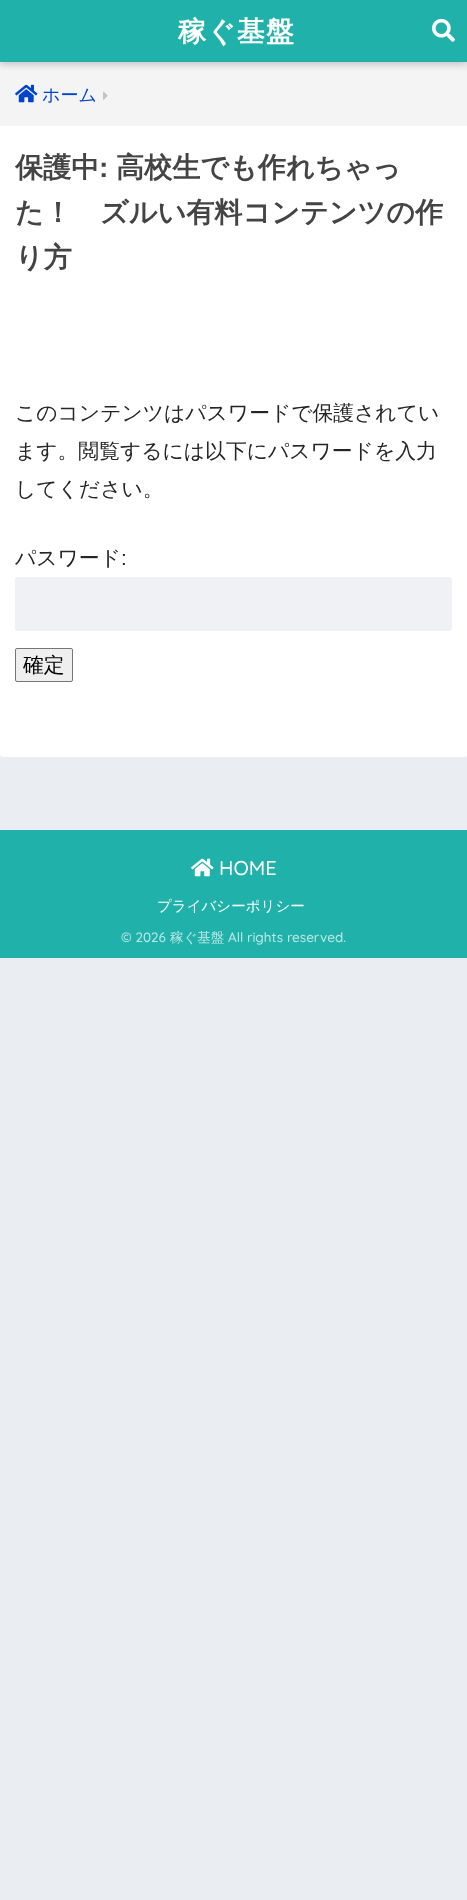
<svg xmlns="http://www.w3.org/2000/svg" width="467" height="1900">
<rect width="100%" height="100%" fill="#eaedf2"/>
<rect y="62" width="467" height="695" rx="3" fill="#fff"/>
<rect y="62" width="467" height="64" fill="#f4f4f4"/>
<rect y="3" width="467" height="62" fill="#0000002e" filter="blur(3px)"/>
<rect width="467" height="62" fill="#20b2aa"/>
<text x="178" y="41" style="font-family:WenQuanYi Zen Hei;font-size:28px;font-weight:bold;letter-spacing:1px;fill:#fff">稼ぐ基盤</text>
<image x="432" y="18" width="23" height="24" href="media/1.png"/>
<image x="15" y="84" width="23" height="19" href="media/2.png"/>
<text x="42" y="101" style="font-family:WenQuanYi Zen Hei;font-size:18px;font-weight:500;fill:#04c">ホーム</text>
<image x="103" y="91" width="5" height="9" href="media/3.png"/>
<text x="15" y="177" style="font-family:WenQuanYi Zen Hei;font-size:28.1px;font-weight:bold;fill:#444">保護中</text>
<text x="99" y="177" style="font-family:Liberation Sans;font-size:28.1px;font-weight:bold;fill:#444">:</text>
<text x="116" y="177" style="font-family:WenQuanYi Zen Hei;font-size:28.1px;font-weight:bold;fill:#444">高校生でも作れちゃっ</text>
<text x="15" y="222" style="font-family:WenQuanYi Zen Hei;font-size:28.1px;font-weight:bold;fill:#444">た！　ズルい有料コンテンツの作</text>
<text x="15" y="267" style="font-family:WenQuanYi Zen Hei;font-size:28.1px;font-weight:bold;fill:#444">り方</text>
<text x="15" y="420" style="font-family:WenQuanYi Zen Hei;font-size:20.8px;font-weight:500;fill:#252525">このコンテンツはパスワードで保護されてい</text>
<text x="15" y="458" style="font-family:WenQuanYi Zen Hei;font-size:20.8px;font-weight:500;fill:#252525">ます。閲覧するには以下にパスワードを入力</text>
<text x="15" y="496" style="font-family:WenQuanYi Zen Hei;font-size:20.8px;font-weight:500;fill:#252525">してください。</text>
<text x="15" y="565" style="font-family:WenQuanYi Zen Hei;font-size:20.8px;font-weight:500;fill:#252525">パスワード</text>
<text x="121" y="565" style="font-family:Liberation Sans;font-size:20.8px;fill:#252525">:</text>
<rect x="15" y="577" width="437" height="54" rx="3" fill="#eff1f5"/>
<rect x="15.5" y="648.5" width="57" height="33" rx="1.5" fill="#efefef" stroke="#767676"/>
<text x="23" y="672" style="font-family:WenQuanYi Zen Hei;font-size:20.8px;font-weight:500;fill:#000">確定</text>
<rect y="830" width="467" height="128" fill="#20b2aa"/>
<image x="191" y="858" width="23" height="19" href="media/4.png"/>
<text x="219" y="875" style="font-family:Quicksand;font-size:20px;font-weight:500;fill:#fff">HOME</text>
<text x="157" y="911" style="font-family:WenQuanYi Zen Hei;font-size:14.5px;font-weight:500;fill:#fff">プライバシーポリシー</text>
<text x="121" y="942" style="font-family:Quicksand;font-size:13.5px;font-weight:500;fill:#bce8e6">© 2026</text>
<text x="170" y="942" style="font-family:WenQuanYi Zen Hei;font-size:13.5px;font-weight:500;fill:#bce8e6">稼ぐ基盤</text>
<text x="228" y="942" style="font-family:Quicksand;font-size:13.5px;font-weight:500;fill:#bce8e6">All rights reserved.</text>
</svg>
